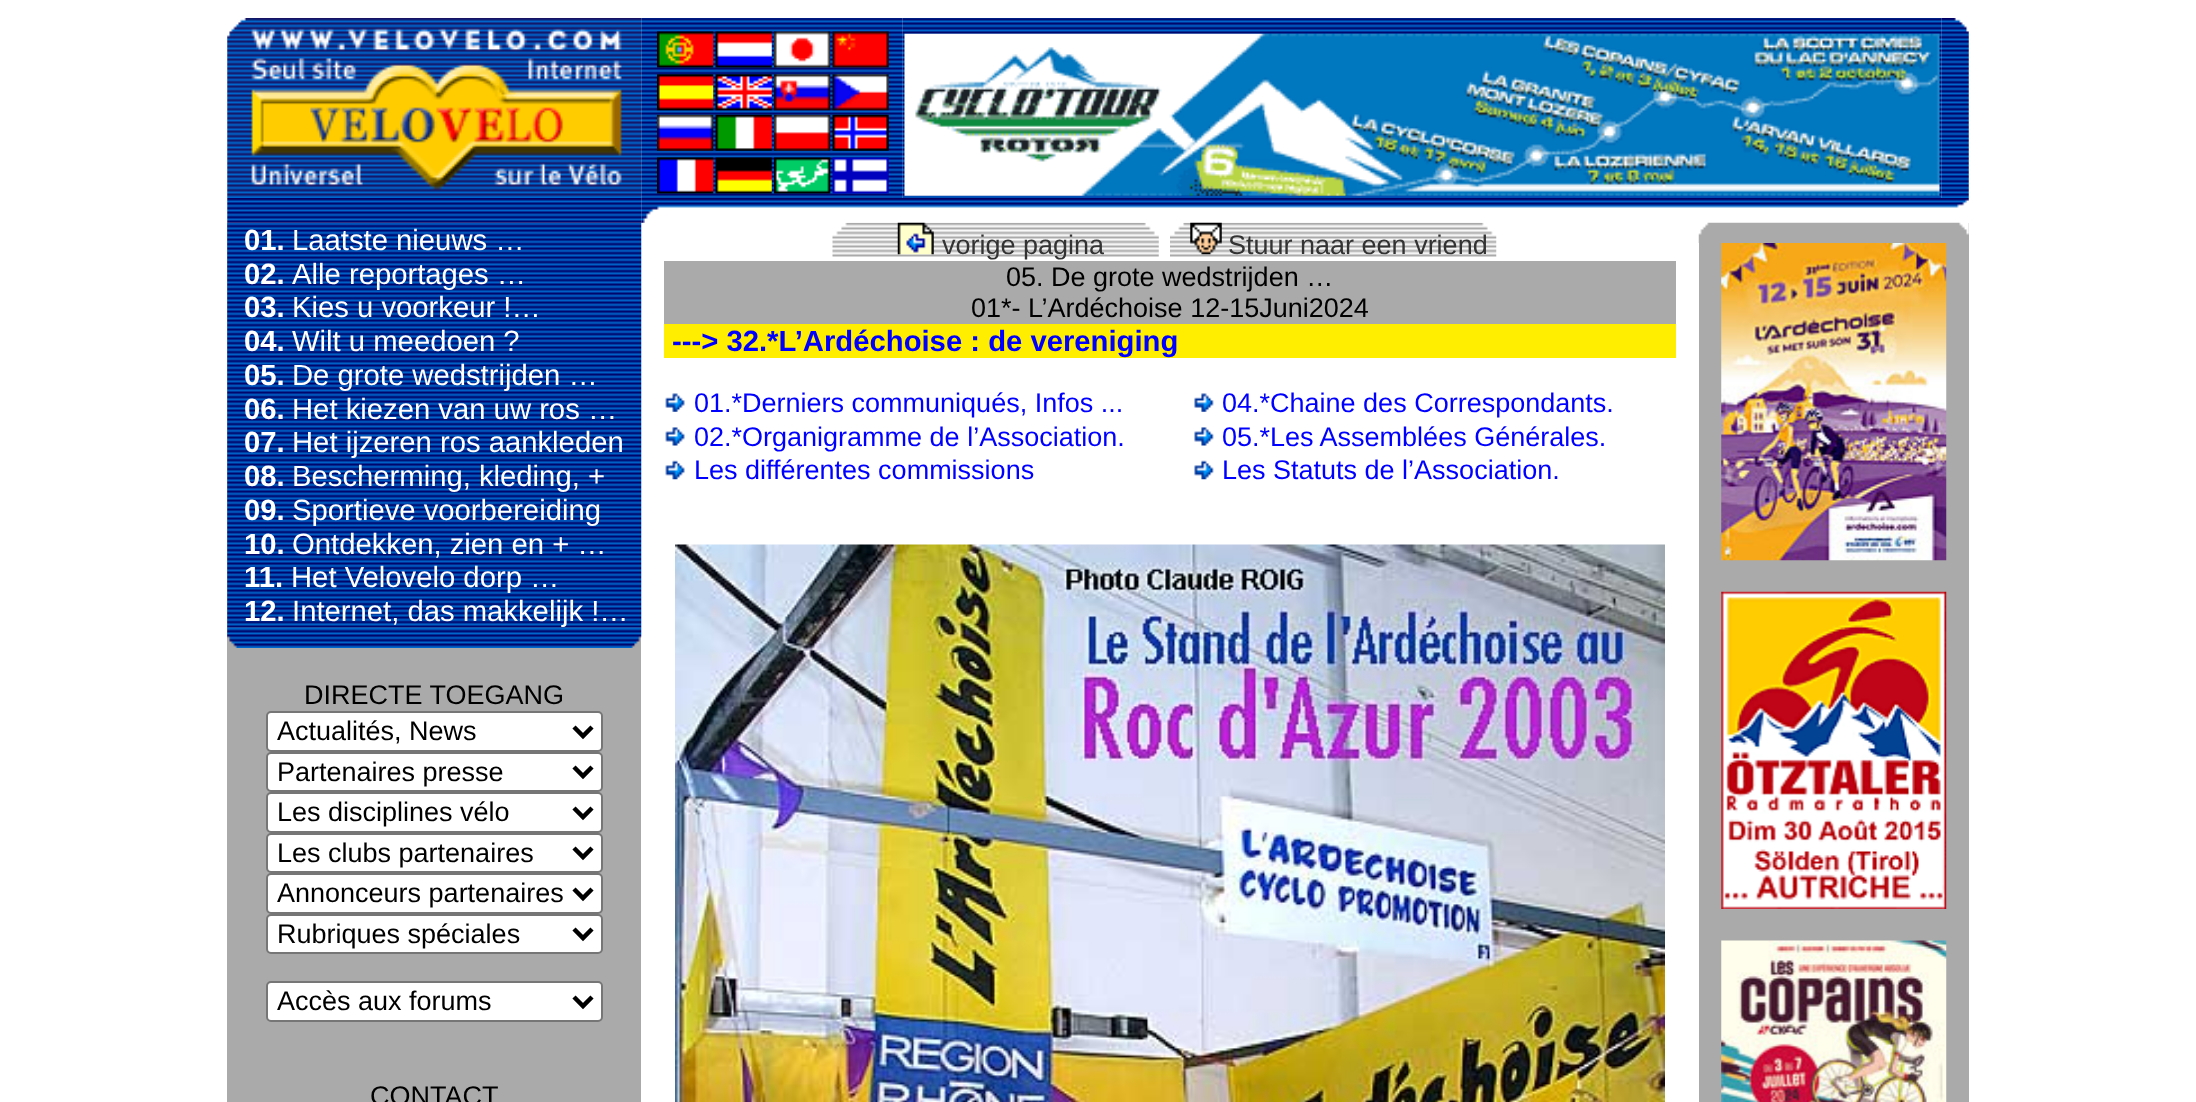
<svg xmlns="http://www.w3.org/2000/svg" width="2196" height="1102">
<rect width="100%" height="100%" fill="#fff"/>
<image x="641" y="18" width="262" height="180" href="media/2.png"/>
<image x="227" y="18" width="415" height="180" href="media/1.png"/>
<image x="657" y="31" width="57" height="37" href="media/3.png"/>
<image x="715" y="31" width="57" height="37" href="media/4.png"/>
<image x="774" y="31" width="57" height="37" href="media/5.png"/>
<image x="832" y="31" width="57" height="37" href="media/6.png"/>
<image x="657" y="74" width="57" height="37" href="media/7.png"/>
<image x="715" y="74" width="57" height="37" href="media/8.png"/>
<image x="774" y="74" width="57" height="37" href="media/9.png"/>
<image x="832" y="74" width="57" height="37" href="media/10.png"/>
<image x="657" y="114" width="57" height="37" href="media/11.png"/>
<image x="715" y="114" width="57" height="37" href="media/12.png"/>
<image x="774" y="114" width="57" height="37" href="media/13.png"/>
<image x="832" y="114" width="57" height="37" href="media/14.png"/>
<image x="657" y="157" width="57" height="37" href="media/15.png"/>
<image x="715" y="157" width="57" height="37" href="media/16.png"/>
<image x="774" y="157" width="57" height="37" href="media/17.png"/>
<image x="832" y="157" width="57" height="37" href="media/18.png"/>
<image x="902" y="18" width="1040" height="180" href="media/19.png"/>
<image x="904" y="33" width="1036" height="163" href="media/20.png"/>
<image x="1941" y="18" width="28" height="180" href="media/21.png"/>
<rect x="227" y="223" width="414" height="879" fill="#aaa"/>
<image x="227" y="222" width="415" height="406" href="media/24.png"/>
<image x="227" y="198" width="415" height="25" href="media/22.png"/>
<image x="832" y="222" width="327" height="35" href="media/26.png"/>
<image x="1170" y="222" width="327" height="35" href="media/28.png"/>
<image x="641" y="198" width="1328" height="25" href="media/23.png"/>
<text x="244" y="250" style="font-family:Liberation Sans;font-size:29.25px;font-weight:bold;fill:#fff">01.</text>
<text x="292" y="250" style="font-family:Liberation Sans;font-size:29.25px;fill:#fff">Laatste nieuws …</text>
<text x="244" y="284" style="font-family:Liberation Sans;font-size:29.25px;font-weight:bold;fill:#fff">02.</text>
<text x="292" y="284" style="font-family:Liberation Sans;font-size:29.25px;fill:#fff">Alle reportages …</text>
<text x="244" y="317" style="font-family:Liberation Sans;font-size:29.25px;font-weight:bold;fill:#fff">03.</text>
<text x="292" y="317" style="font-family:Liberation Sans;font-size:29.25px;fill:#fff">Kies u voorkeur !…</text>
<text x="244" y="351" style="font-family:Liberation Sans;font-size:29.25px;font-weight:bold;fill:#fff">04.</text>
<text x="292" y="351" style="font-family:Liberation Sans;font-size:29.25px;fill:#fff">Wilt u meedoen ?</text>
<text x="244" y="385" style="font-family:Liberation Sans;font-size:29.25px;font-weight:bold;fill:#fff">05.</text>
<text x="292" y="385" style="font-family:Liberation Sans;font-size:29.25px;fill:#fff">De grote wedstrijden …</text>
<text x="244" y="419" style="font-family:Liberation Sans;font-size:29.25px;font-weight:bold;fill:#fff">06.</text>
<text x="292" y="419" style="font-family:Liberation Sans;font-size:29.25px;fill:#fff">Het kiezen van uw ros …</text>
<text x="244" y="452" style="font-family:Liberation Sans;font-size:29.25px;font-weight:bold;fill:#fff">07.</text>
<text x="292" y="452" style="font-family:Liberation Sans;font-size:29.25px;fill:#fff">Het ijzeren ros aankleden</text>
<text x="244" y="486" style="font-family:Liberation Sans;font-size:29.25px;font-weight:bold;fill:#fff">08.</text>
<text x="292" y="486" style="font-family:Liberation Sans;font-size:29.25px;fill:#fff">Bescherming, kleding, +</text>
<text x="244" y="520" style="font-family:Liberation Sans;font-size:29.25px;font-weight:bold;fill:#fff">09.</text>
<text x="292" y="520" style="font-family:Liberation Sans;font-size:29.25px;fill:#fff">Sportieve voorbereiding</text>
<text x="244" y="554" style="font-family:Liberation Sans;font-size:29.25px;font-weight:bold;fill:#fff">10.</text>
<text x="292" y="554" style="font-family:Liberation Sans;font-size:29.25px;fill:#fff">Ontdekken, zien en + …</text>
<text x="244" y="587" style="font-family:Liberation Sans;font-size:29.25px;font-weight:bold;fill:#fff">11.</text>
<text x="291" y="587" style="font-family:Liberation Sans;font-size:29.25px;fill:#fff">Het Velovelo dorp …</text>
<text x="244" y="621" style="font-family:Liberation Sans;font-size:29.25px;font-weight:bold;fill:#fff">12.</text>
<text x="292" y="621" style="font-family:Liberation Sans;font-size:29.25px;fill:#fff">Internet, das makkelijk !…</text>
<image x="227" y="627" width="415" height="21" href="media/25.png"/>
<text x="304" y="704" style="font-family:Liberation Sans;font-size:27px;fill:#000">DIRECTE TOEGANG</text>
<rect x="267" y="712" width="335" height="39" rx="4" fill="#fff" stroke="#767676" stroke-width="2"/>
<path d="M574 727l9 9l9-9" fill="none" stroke="#000" stroke-width="4.5"/>
<text x="277" y="740" style="font-family:Liberation Sans;font-size:27px;fill:#000">Actualités, News</text>
<rect x="267" y="753" width="335" height="38" rx="4" fill="#fff" stroke="#767676" stroke-width="2"/>
<path d="M574 767l9 9l9-9" fill="none" stroke="#000" stroke-width="4.5"/>
<text x="277" y="781" style="font-family:Liberation Sans;font-size:27px;fill:#000">Partenaires presse</text>
<rect x="267" y="793" width="335" height="39" rx="4" fill="#fff" stroke="#767676" stroke-width="2"/>
<path d="M574 808l9 9l9-9" fill="none" stroke="#000" stroke-width="4.5"/>
<text x="277" y="821" style="font-family:Liberation Sans;font-size:27px;fill:#000">Les disciplines vélo</text>
<rect x="267" y="834" width="335" height="38" rx="4" fill="#fff" stroke="#767676" stroke-width="2"/>
<path d="M574 848l9 9l9-9" fill="none" stroke="#000" stroke-width="4.5"/>
<text x="277" y="862" style="font-family:Liberation Sans;font-size:27px;fill:#000">Les clubs partenaires</text>
<rect x="267" y="874" width="335" height="39" rx="4" fill="#fff" stroke="#767676" stroke-width="2"/>
<path d="M574 889l9 9l9-9" fill="none" stroke="#000" stroke-width="4.5"/>
<text x="277" y="902" style="font-family:Liberation Sans;font-size:27px;fill:#000">Annonceurs partenaires</text>
<rect x="267" y="915" width="335" height="38" rx="4" fill="#fff" stroke="#767676" stroke-width="2"/>
<path d="M574 929l9 9l9-9" fill="none" stroke="#000" stroke-width="4.5"/>
<text x="277" y="943" style="font-family:Liberation Sans;font-size:27px;fill:#000">Rubriques spéciales</text>
<rect x="267" y="982" width="335" height="39" rx="4" fill="#fff" stroke="#767676" stroke-width="2"/>
<path d="M574 997l9 9l9-9" fill="none" stroke="#000" stroke-width="4.5"/>
<text x="277" y="1010" style="font-family:Liberation Sans;font-size:27px;fill:#000">Accès aux forums</text>
<text x="370" y="1105" style="font-family:Liberation Sans;font-size:27px;fill:#000">CONTACT</text>
<image x="897" y="222" width="37" height="33" href="media/27.png"/>
<text x="942" y="254" style="font-family:Liberation Sans;font-size:27px;fill:#333">vorige pagina</text>
<image x="1190" y="222" width="32" height="33" href="media/29.png"/>
<text x="1228" y="254" style="font-family:Liberation Sans;font-size:27px;fill:#333">Stuur naar een vriend</text>
<rect x="664" y="261" width="1012" height="63" fill="#aaa"/>
<text x="1006" y="286" style="font-family:Liberation Sans;font-size:27px;fill:#000">05. De grote wedstrijden …</text>
<text x="971" y="317" style="font-family:Liberation Sans;font-size:27px;fill:#000">01*- L’Ardéchoise 12-15Juni2024</text>
<rect x="664" y="324" width="1012" height="34" fill="#fe0"/>
<text x="672" y="351" style="font-family:Liberation Sans;font-size:29.25px;font-weight:bold;fill:#00f">---&gt; 32.*L’Ardéchoise : de vereniging</text>
<image x="665" y="393" width="20" height="19" href="media/30.png"/>
<text x="694" y="412" style="font-family:Liberation Sans;font-size:27px;fill:#00f">01.*Derniers communiqués, Infos ...</text>
<image x="665" y="427" width="20" height="19" href="media/31.png"/>
<text x="694" y="446" style="font-family:Liberation Sans;font-size:27px;fill:#00f">02.*Organigramme de l’Association.</text>
<image x="665" y="460" width="20" height="20" href="media/32.png"/>
<text x="694" y="479" style="font-family:Liberation Sans;font-size:27px;fill:#00f">Les différentes commissions</text>
<image x="1194" y="393" width="20" height="19" href="media/33.png"/>
<text x="1222" y="412" style="font-family:Liberation Sans;font-size:27px;fill:#00f">04.*Chaine des Correspondants.</text>
<image x="1194" y="427" width="20" height="19" href="media/34.png"/>
<text x="1222" y="446" style="font-family:Liberation Sans;font-size:27px;fill:#00f">05.*Les Assemblées Générales.</text>
<image x="1194" y="460" width="20" height="20" href="media/35.png"/>
<text x="1222" y="479" style="font-family:Liberation Sans;font-size:27px;fill:#00f">Les Statuts de l’Association.</text>
<image x="675" y="544" width="990" height="558" href="media/36.png"/>
<rect x="1699" y="223" width="270" height="879" fill="#aaa"/>
<image x="1698" y="222" width="271" height="21" href="media/37.png"/>
<image x="1721" y="243" width="226" height="318" href="media/38.png"/>
<image x="1721" y="591" width="226" height="318" href="media/39.png"/>
<image x="1721" y="940" width="226" height="162" href="media/40.png"/>
</svg>
